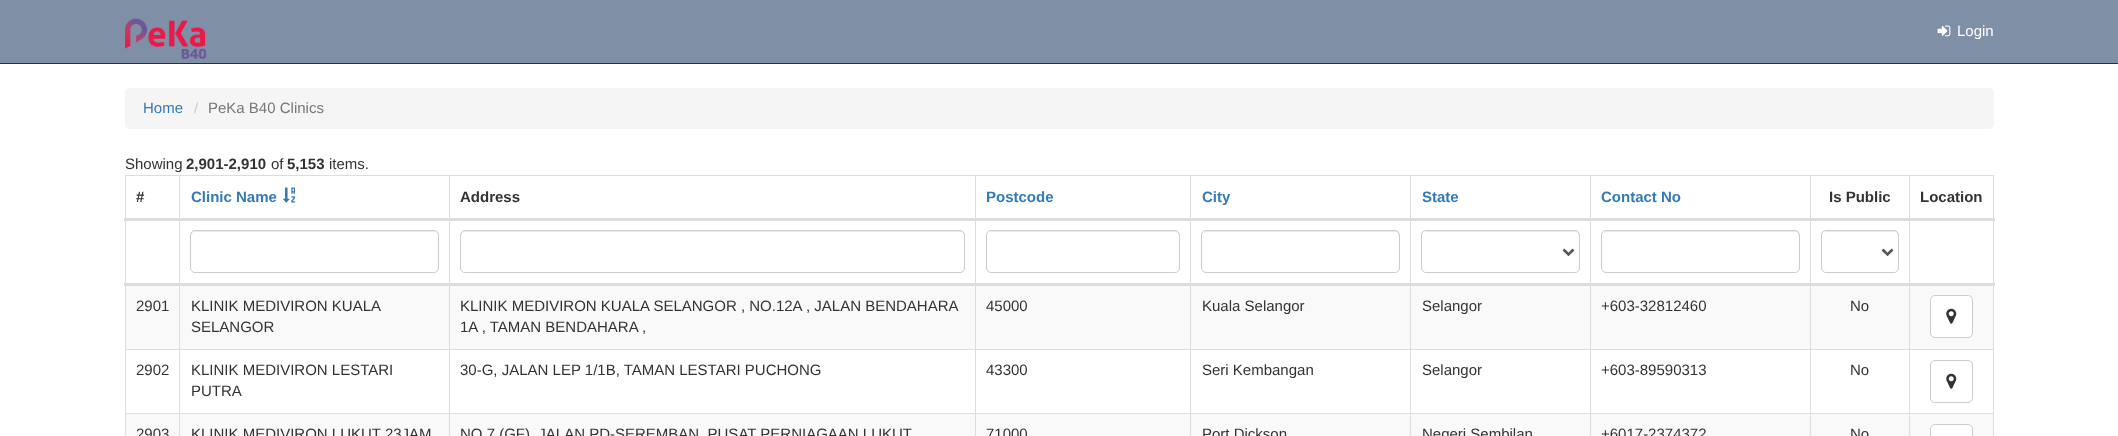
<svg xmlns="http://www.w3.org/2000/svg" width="2118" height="436">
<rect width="100%" height="100%" fill="#fff"/>
<rect width="2118" height="63" fill="#7f8fa6"/>
<rect y="63" width="2118" height="1" fill="#263238"/>
<image x="125" y="18" width="82" height="41" href="media/1.png"/>
<image x="1937" y="25" width="14" height="12" href="media/2.png"/>
<text x="1957" y="36" style="font-family:Liberation Sans;font-size:15px;fill:#fff">Login</text>
<rect x="125" y="88" width="1869" height="41" rx="5" fill="#f5f5f5"/>
<text x="143" y="113" style="font-family:Liberation Sans;font-size:15px;fill:#337ab7">Home</text>
<text x="194" y="113" style="font-family:Liberation Sans;font-size:15px;fill:#ccc">/</text>
<text x="208" y="113" style="font-family:Liberation Sans;font-size:15px;fill:#777">PeKa B40 Clinics</text>
<text x="125" y="169" style="font-family:Liberation Sans;font-size:15px;fill:#333">Showing</text>
<text x="186" y="169" style="font-family:Liberation Sans;font-size:15px;font-weight:bold;fill:#333">2,901-2,910</text>
<text x="271" y="169" style="font-family:Liberation Sans;font-size:15px;fill:#333">of</text>
<text x="287" y="169" style="font-family:Liberation Sans;font-size:15px;font-weight:bold;fill:#333">5,153</text>
<text x="329" y="169" style="font-family:Liberation Sans;font-size:15px;fill:#333">items.</text>
<rect x="125" y="175" width="1869" height="1" fill="#ddd"/>
<rect x="1993" y="175" width="1" height="261" fill="#ddd"/>
<rect x="125" y="175" width="1" height="261" fill="#ddd"/>
<text x="136" y="202" style="font-family:Liberation Sans;font-size:15px;font-weight:bold;fill:#333">#</text>
<text x="191" y="202" style="font-family:Liberation Sans;font-size:15px;font-weight:bold;fill:#337ab7">Clinic Name</text>
<image x="283" y="187" width="13" height="16" href="media/3.png"/>
<text x="460" y="202" style="font-family:Liberation Sans;font-size:15px;font-weight:bold;fill:#333">Address</text>
<text x="986" y="202" style="font-family:Liberation Sans;font-size:15px;font-weight:bold;fill:#337ab7">Postcode</text>
<text x="1202" y="202" style="font-family:Liberation Sans;font-size:15px;font-weight:bold;fill:#337ab7">City</text>
<text x="1422" y="202" style="font-family:Liberation Sans;font-size:15px;font-weight:bold;fill:#337ab7">State</text>
<text x="1601" y="202" style="font-family:Liberation Sans;font-size:15px;font-weight:bold;fill:#337ab7">Contact No</text>
<text x="1829" y="202" style="font-family:Liberation Sans;font-size:15px;font-weight:bold;fill:#333">Is Public</text>
<rect x="126" y="286" width="1867" height="63" fill="#f9f9f9"/>
<rect x="1909" y="349" width="85" height="1" fill="#ddd"/>
<rect x="1909" y="413" width="85" height="1" fill="#ddd"/>
<rect x="126" y="414" width="1867" height="22" fill="#f9f9f9"/>
<rect x="1909" y="413" width="1" height="23" fill="#ddd"/>
<rect x="1810" y="413" width="100" height="1" fill="#ddd"/>
<rect x="1909" y="349" width="1" height="65" fill="#ddd"/>
<rect x="1810" y="349" width="100" height="1" fill="#ddd"/>
<rect x="1810" y="413" width="1" height="23" fill="#ddd"/>
<rect x="1590" y="413" width="221" height="1" fill="#ddd"/>
<rect x="1810" y="349" width="1" height="65" fill="#ddd"/>
<rect x="1590" y="349" width="221" height="1" fill="#ddd"/>
<rect x="1590" y="413" width="1" height="23" fill="#ddd"/>
<rect x="1410" y="413" width="181" height="1" fill="#ddd"/>
<rect x="1590" y="349" width="1" height="65" fill="#ddd"/>
<rect x="1410" y="349" width="181" height="1" fill="#ddd"/>
<rect x="1410" y="413" width="1" height="23" fill="#ddd"/>
<rect x="1190" y="413" width="221" height="1" fill="#ddd"/>
<rect x="1410" y="349" width="1" height="65" fill="#ddd"/>
<rect x="1190" y="349" width="221" height="1" fill="#ddd"/>
<rect x="1190" y="413" width="1" height="23" fill="#ddd"/>
<rect x="975" y="413" width="216" height="1" fill="#ddd"/>
<rect x="1190" y="349" width="1" height="65" fill="#ddd"/>
<rect x="975" y="349" width="216" height="1" fill="#ddd"/>
<rect x="975" y="413" width="1" height="23" fill="#ddd"/>
<rect x="449" y="413" width="527" height="1" fill="#ddd"/>
<rect x="975" y="349" width="1" height="65" fill="#ddd"/>
<rect x="449" y="349" width="527" height="1" fill="#ddd"/>
<rect x="449" y="413" width="1" height="23" fill="#ddd"/>
<rect x="179" y="413" width="271" height="1" fill="#ddd"/>
<rect x="449" y="349" width="1" height="65" fill="#ddd"/>
<rect x="179" y="349" width="271" height="1" fill="#ddd"/>
<rect x="179" y="413" width="1" height="23" fill="#ddd"/>
<rect x="125" y="413" width="55" height="1" fill="#ddd"/>
<rect x="179" y="349" width="1" height="65" fill="#ddd"/>
<rect x="125" y="349" width="55" height="1" fill="#ddd"/>
<rect x="179" y="175" width="1" height="175" fill="#ddd"/>
<rect x="449" y="175" width="1" height="175" fill="#ddd"/>
<rect x="975" y="175" width="1" height="175" fill="#ddd"/>
<rect x="1190" y="175" width="1" height="175" fill="#ddd"/>
<rect x="1410" y="175" width="1" height="175" fill="#ddd"/>
<rect x="1590" y="175" width="1" height="175" fill="#ddd"/>
<rect x="1810" y="175" width="1" height="175" fill="#ddd"/>
<rect x="1909" y="175" width="1" height="175" fill="#ddd"/>
<rect x="124" y="218" width="1871" height="3" fill="#ddd"/>
<text x="1920" y="202" style="font-family:Liberation Sans;font-size:15px;font-weight:bold;fill:#333">Location</text>
<path d="M195 232h239c2 0 4 2 4 4v-1c0-2-2-4-4-4h-239c-2 0-4 2-4 4v1c0-2 2-4 4-4z" fill="#ececec"/>
<rect x="190.5" y="230.5" width="248" height="42" rx="4.5" fill="none" stroke="#ccc"/>
<path d="M465 232h495c2 0 4 2 4 4c0-3-1-5-4-5h-495c-3 0-4 2-4 5c0-2 2-4 4-4z" fill="#ececec"/>
<rect x="460.5" y="230.5" width="504" height="42" rx="4.5" fill="none" stroke="#ccc"/>
<path d="M991 232h184c2 0 4 2 4 4c0-3-1-5-4-5h-184c-2 1-3 3-3 5c0-2 1-4 3-4z" fill="#ececec"/>
<rect x="986.5" y="230.5" width="193" height="42" rx="4.5" fill="none" stroke="#ccc"/>
<path d="M1206 232h189c2 0 4 2 4 4v-1c0-2-2-4-4-4h-188c-1 0-3 1-3 2z" fill="#ececec"/>
<rect x="1201.5" y="230.5" width="198" height="42" rx="4.5" fill="none" stroke="#ccc"/>
<path d="M1426 232h149c2 0 4 2 4 4v-1c0-2-2-4-4-4h-148c-1 0-3 1-3 2z" fill="#ececec"/>
<rect x="1421.5" y="230.5" width="158" height="42" rx="4.5" fill="none" stroke="#ccc"/>
<path d="M1563.5 249.5l5 5l5-5" fill="none" stroke="#555" stroke-width="2.5"/>
<path d="M1606 232h189c2 0 4 2 4 4v-1c0-2-2-4-4-4h-188c-1 0-3 1-3 2z" fill="#ececec"/>
<rect x="1601.5" y="230.5" width="198" height="42" rx="4.5" fill="none" stroke="#ccc"/>
<path d="M1826 232h68c2 0 4 2 4 4c0-2 0-4-2-5h-70c-1 0-2 1-2 2z" fill="#ececec"/>
<rect x="1821.5" y="230.5" width="77" height="42" rx="4.5" fill="none" stroke="#ccc"/>
<path d="M1882.5 249.5l5 5l5-5" fill="none" stroke="#555" stroke-width="2.5"/>
<rect x="124" y="283" width="1871" height="3" fill="#ddd"/>
<text x="136" y="311" style="font-family:Liberation Sans;font-size:15px;fill:#333">2901</text>
<text x="191" y="311" style="font-family:Liberation Sans;font-size:15px;fill:#333">KLINIK MEDIVIRON KUALA</text>
<text x="191" y="332" style="font-family:Liberation Sans;font-size:15px;fill:#333">SELANGOR</text>
<text x="460" y="311" style="font-family:Liberation Sans;font-size:15px;fill:#333">KLINIK MEDIVIRON KUALA SELANGOR , NO.12A , JALAN BENDAHARA</text>
<text x="460" y="332" style="font-family:Liberation Sans;font-size:15px;fill:#333">1A , TAMAN BENDAHARA ,</text>
<text x="986" y="311" style="font-family:Liberation Sans;font-size:15px;fill:#333">45000</text>
<text x="1202" y="311" style="font-family:Liberation Sans;font-size:15px;fill:#333">Kuala Selangor</text>
<text x="1422" y="311" style="font-family:Liberation Sans;font-size:15px;fill:#333">Selangor</text>
<text x="1601" y="311" style="font-family:Liberation Sans;font-size:15px;fill:#333">+603-32812460</text>
<text x="1850" y="311" style="font-family:Liberation Sans;font-size:15px;fill:#333">No</text>
<rect x="1930.5" y="295.5" width="42" height="42" rx="4.5" fill="#fff" stroke="#ccc"/>
<image x="1946" y="308" width="11" height="16" href="media/4.png"/>
<text x="136" y="375" style="font-family:Liberation Sans;font-size:15px;fill:#333">2902</text>
<text x="191" y="375" style="font-family:Liberation Sans;font-size:15px;fill:#333">KLINIK MEDIVIRON LESTARI</text>
<text x="191" y="396" style="font-family:Liberation Sans;font-size:15px;fill:#333">PUTRA</text>
<text x="460" y="375" style="font-family:Liberation Sans;font-size:15px;fill:#333">30-G, JALAN LEP 1/1B, TAMAN LESTARI PUCHONG</text>
<text x="986" y="375" style="font-family:Liberation Sans;font-size:15px;fill:#333">43300</text>
<text x="1202" y="375" style="font-family:Liberation Sans;font-size:15px;fill:#333">Seri Kembangan</text>
<text x="1422" y="375" style="font-family:Liberation Sans;font-size:15px;fill:#333">Selangor</text>
<text x="1601" y="375" style="font-family:Liberation Sans;font-size:15px;fill:#333">+603-89590313</text>
<text x="1850" y="375" style="font-family:Liberation Sans;font-size:15px;fill:#333">No</text>
<rect x="1930.5" y="360.5" width="42" height="42" rx="4.5" fill="none" stroke="#ccc"/>
<image x="1946" y="373" width="11" height="16" href="media/4.png"/>
<text x="136" y="439" style="font-family:Liberation Sans;font-size:15px;fill:#333">2903</text>
<text x="191" y="439" style="font-family:Liberation Sans;font-size:15px;fill:#333">KLINIK MEDIVIRON LUKUT 23JAM</text>
<text x="460" y="439" style="font-family:Liberation Sans;font-size:15px;fill:#333">NO 7 (GF), JALAN PD-SEREMBAN, PUSAT PERNIAGAAN LUKUT</text>
<text x="986" y="439" style="font-family:Liberation Sans;font-size:15px;fill:#333">71000</text>
<text x="1202" y="439" style="font-family:Liberation Sans;font-size:15px;fill:#333">Port Dickson</text>
<text x="1422" y="439" style="font-family:Liberation Sans;font-size:15px;fill:#333">Negeri Sembilan</text>
<text x="1601" y="439" style="font-family:Liberation Sans;font-size:15px;fill:#333">+6017-2374372</text>
<text x="1850" y="439" style="font-family:Liberation Sans;font-size:15px;fill:#333">No</text>
<rect x="1930.5" y="424.5" width="42" height="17" rx="4.5" fill="#fff" stroke="#ccc"/>
</svg>
